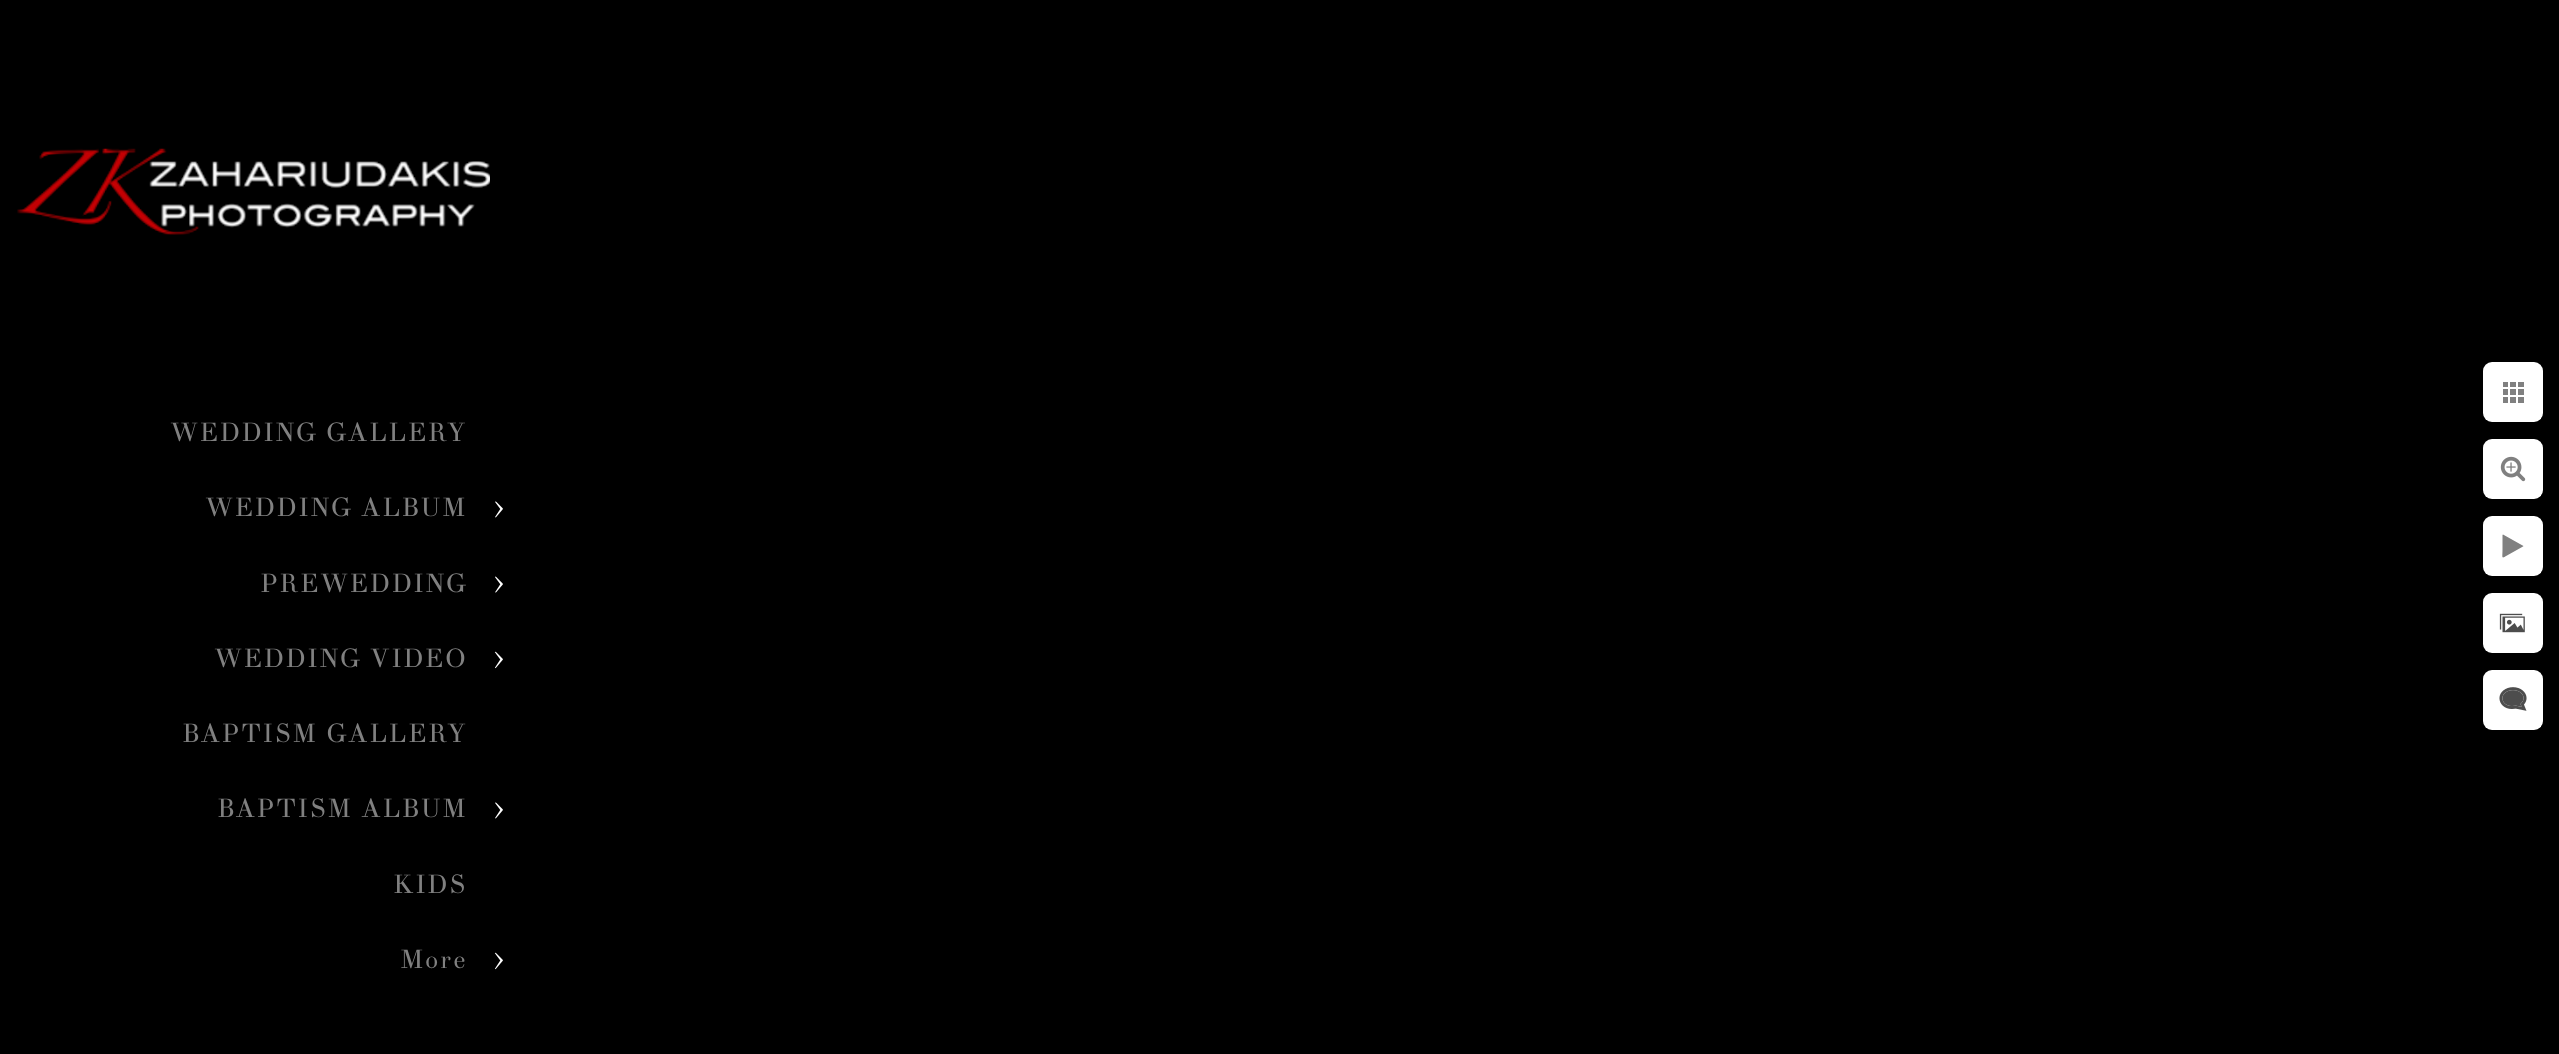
<svg xmlns="http://www.w3.org/2000/svg" width="2559" height="1054">
<rect width="100%" height="100%" fill="#000"/>
<image x="17" y="148" width="473" height="87" href="media/1.png"/>
<text x="170" y="441" style="font-family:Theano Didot;font-size:26.25px;letter-spacing:1.75px;fill:#808080">WEDDING GALLERY</text>
<text x="205" y="516" style="font-family:Theano Didot;font-size:26.25px;letter-spacing:1.75px;fill:#808080">WEDDING ALBUM</text>
<image x="495" y="501" width="8" height="17" href="media/2.png"/>
<text x="260" y="592" style="font-family:Theano Didot;font-size:26.25px;letter-spacing:1.75px;fill:#808080">PREWEDDING</text>
<image x="495" y="576" width="8" height="17" href="media/3.png"/>
<text x="214" y="667" style="font-family:Theano Didot;font-size:26.25px;letter-spacing:1.75px;fill:#808080">WEDDING VIDEO</text>
<image x="494" y="651" width="9" height="18" href="media/4.png"/>
<text x="182" y="742" style="font-family:Theano Didot;font-size:26.25px;letter-spacing:1.75px;fill:#808080">BAPTISM GALLERY</text>
<text x="217" y="817" style="font-family:Theano Didot;font-size:26.25px;letter-spacing:1.75px;fill:#808080">BAPTISM ALBUM</text>
<image x="495" y="802" width="8" height="17" href="media/2.png"/>
<text x="393" y="893" style="font-family:Theano Didot;font-size:26.25px;letter-spacing:1.75px;fill:#808080">KIDS</text>
<text x="400" y="968" style="font-family:Theano Didot;font-size:26.25px;letter-spacing:1.75px;fill:#808080">More</text>
<image x="494" y="952" width="9" height="18" href="media/4.png"/>
<rect x="2483" y="362" width="60" height="60" rx="9" fill="#fff"/>
<image x="2503" y="382" width="21" height="21" href="media/5.png"/>
<rect x="2483" y="439" width="60" height="60" rx="9" fill="#fff"/>
<image x="2500" y="456" width="26" height="26" href="media/6.png"/>
<rect x="2483" y="516" width="60" height="60" rx="9" fill="#fff"/>
<path d="M2523 546.5l-16 9c-6 3.5-4.5 2.5-4.5-6v-14.5l.5-.5l20.5 11.5z" fill="#808080"/>
<rect x="2483" y="593" width="60" height="60" rx="9" fill="#fff"/>
<image x="2499" y="613" width="26" height="20" href="media/7.png"/>
<rect x="2483" y="670" width="60" height="60" rx="9" fill="#fff"/>
<image x="2499" y="687" width="28" height="24" href="media/8.png"/>
</svg>
